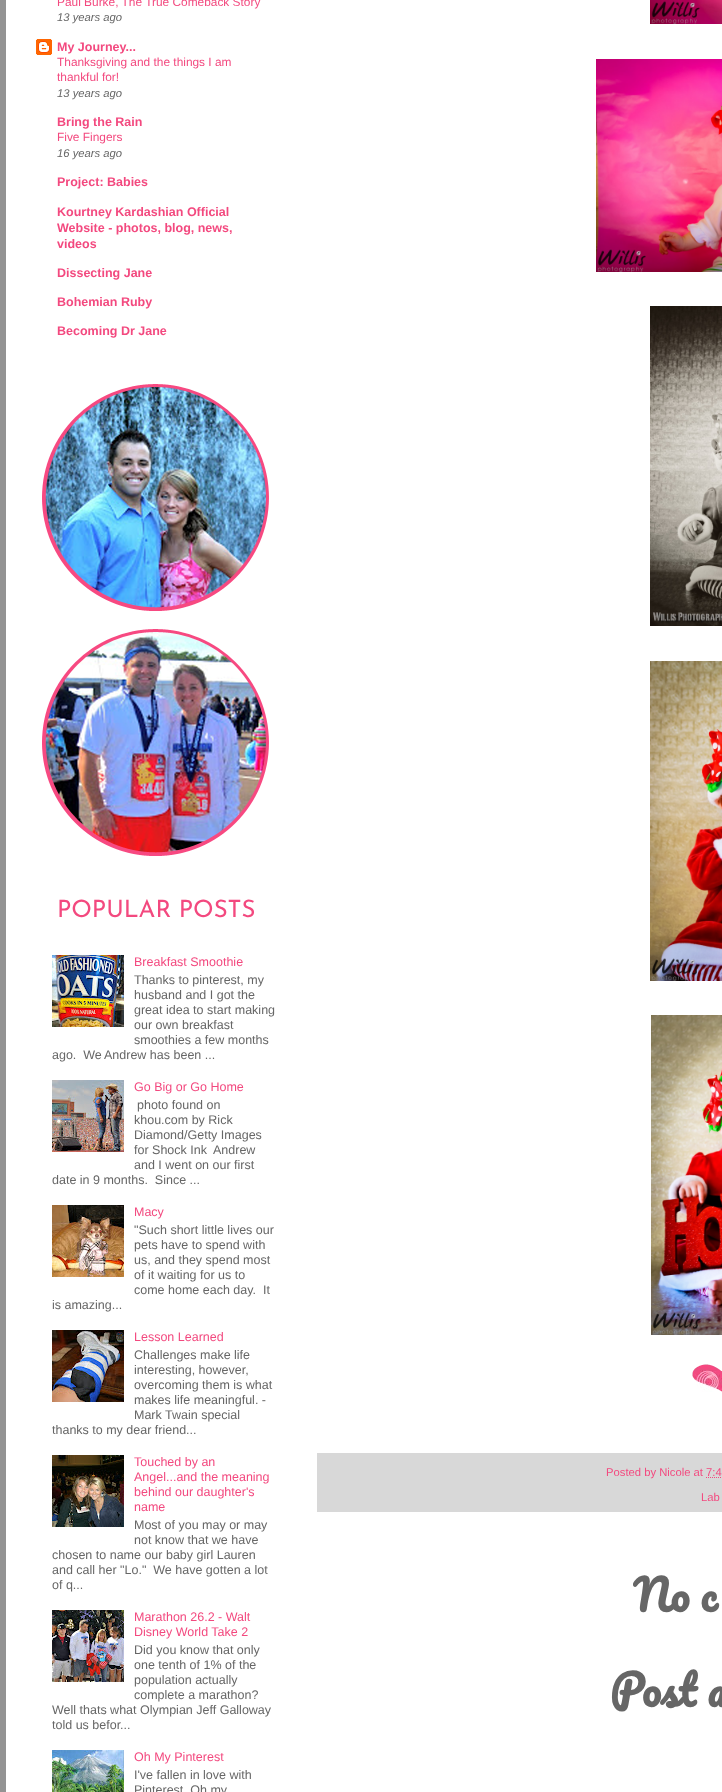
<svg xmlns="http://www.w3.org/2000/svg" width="722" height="1792">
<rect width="100%" height="100%" fill="#fff"/>
<rect x="3" y="-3" width="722" height="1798" fill="none" stroke="#939393" stroke-width="6"/>
<text x="57" y="6" style="font-family:Liberation Sans;font-size:11.9px;fill:#f3497f">Paul Burke, The True Comeback Story</text>
<text x="57" y="21" style="font-family:Liberation Sans;font-size:11.25px;font-style:italic;fill:#666">13 years ago</text>
<image x="36" y="39" width="16" height="16" href="media/1.png"/>
<text x="57" y="51" style="font-family:Liberation Sans;font-size:12.5px;font-weight:bold;fill:#f3497f">My Journey...</text>
<text x="57" y="66" style="font-family:Liberation Sans;font-size:11.9px;fill:#f3497f">Thanksgiving and the things I am</text>
<text x="57" y="81" style="font-family:Liberation Sans;font-size:11.9px;fill:#f3497f">thankful for!</text>
<text x="57" y="97" style="font-family:Liberation Sans;font-size:11.25px;font-style:italic;fill:#666">13 years ago</text>
<text x="57" y="126" style="font-family:Liberation Sans;font-size:12.5px;font-weight:bold;fill:#f3497f">Bring the Rain</text>
<text x="57" y="141" style="font-family:Liberation Sans;font-size:11.9px;fill:#f3497f">Five Fingers</text>
<text x="57" y="157" style="font-family:Liberation Sans;font-size:11.25px;font-style:italic;fill:#666">16 years ago</text>
<text x="57" y="186" style="font-family:Liberation Sans;font-size:12.5px;font-weight:bold;fill:#f3497f">Project: Babies</text>
<text x="57" y="216" style="font-family:Liberation Sans;font-size:12.5px;font-weight:bold;fill:#f3497f">Kourtney Kardashian Official</text>
<text x="57" y="232" style="font-family:Liberation Sans;font-size:12.5px;font-weight:bold;fill:#f3497f">Website - photos, blog, news,</text>
<text x="57" y="248" style="font-family:Liberation Sans;font-size:12.5px;font-weight:bold;fill:#f3497f">videos</text>
<text x="57" y="277" style="font-family:Liberation Sans;font-size:12.5px;font-weight:bold;fill:#f3497f">Dissecting Jane</text>
<text x="57" y="306" style="font-family:Liberation Sans;font-size:12.5px;font-weight:bold;fill:#f3497f">Bohemian Ruby</text>
<text x="57" y="335" style="font-family:Liberation Sans;font-size:12.5px;font-weight:bold;fill:#f3497f">Becoming Dr Jane</text>
<image x="42" y="384" width="227" height="227" href="media/2.png"/>
<image x="42" y="629" width="227" height="227" href="media/3.png"/>
<text x="57" y="917" style="font-family:Josefin Sans;font-size:24px;font-weight:100;fill:#f3497f">POPULAR POSTS</text>
<image x="52" y="955" width="72" height="72" href="media/4.png"/>
<text x="134" y="966" style="font-family:Liberation Sans;font-size:12.5px;fill:#f3497f">Breakfast Smoothie</text>
<text x="134" y="984" style="font-family:Liberation Sans;font-size:12.5px;fill:#666">Thanks to pinterest, my</text>
<text x="134" y="999" style="font-family:Liberation Sans;font-size:12.5px;fill:#666">husband and I got the</text>
<text x="134" y="1014" style="font-family:Liberation Sans;font-size:12.5px;fill:#666">great idea to start making</text>
<text x="134" y="1029" style="font-family:Liberation Sans;font-size:12.5px;fill:#666">our own breakfast</text>
<text x="134" y="1044" style="font-family:Liberation Sans;font-size:12.5px;fill:#666">smoothies a few months</text>
<text x="52" y="1059" style="font-family:Liberation Sans;font-size:12.5px;fill:#666" xml:space="preserve">ago.  We</text>
<text x="104" y="1059" style="font-family:Liberation Sans;font-size:12.5px;fill:#666">Andrew has been ...</text>
<image x="52" y="1080" width="72" height="72" href="media/5.png"/>
<text x="134" y="1091" style="font-family:Liberation Sans;font-size:12.5px;fill:#f3497f">Go Big or Go Home</text>
<text x="137" y="1109" style="font-family:Liberation Sans;font-size:12.5px;fill:#666">photo found on</text>
<text x="134" y="1124" style="font-family:Liberation Sans;font-size:12.5px;fill:#666">khou.com by Rick</text>
<text x="134" y="1139" style="font-family:Liberation Sans;font-size:12.5px;fill:#666">Diamond/Getty Images</text>
<text x="134" y="1154" style="font-family:Liberation Sans;font-size:12.5px;fill:#666">for Shock Ink</text>
<text x="213" y="1154" style="font-family:Liberation Sans;font-size:12.5px;fill:#666">Andrew</text>
<text x="134" y="1169" style="font-family:Liberation Sans;font-size:12.5px;fill:#666">and I went on our first</text>
<text x="52" y="1184" style="font-family:Liberation Sans;font-size:12.5px;fill:#666" xml:space="preserve">date in 9 months.  Since ...</text>
<image x="52" y="1205" width="72" height="72" href="media/6.png"/>
<text x="134" y="1216" style="font-family:Liberation Sans;font-size:12.5px;fill:#f3497f">Macy</text>
<text x="134" y="1234" style="font-family:Liberation Sans;font-size:12.5px;fill:#666">"Such short little lives our</text>
<text x="134" y="1249" style="font-family:Liberation Sans;font-size:12.5px;fill:#666">pets have to spend with</text>
<text x="134" y="1264" style="font-family:Liberation Sans;font-size:12.5px;fill:#666">us, and they spend most</text>
<text x="134" y="1279" style="font-family:Liberation Sans;font-size:12.5px;fill:#666">of it waiting for us to</text>
<text x="134" y="1294" style="font-family:Liberation Sans;font-size:12.5px;fill:#666" xml:space="preserve">come home each day.  It</text>
<text x="52" y="1309" style="font-family:Liberation Sans;font-size:12.5px;fill:#666">is amazing...</text>
<image x="52" y="1330" width="72" height="72" href="media/7.png"/>
<text x="134" y="1341" style="font-family:Liberation Sans;font-size:12.5px;fill:#f3497f">Lesson Learned</text>
<text x="134" y="1359" style="font-family:Liberation Sans;font-size:12.5px;fill:#666">Challenges make life</text>
<text x="134" y="1374" style="font-family:Liberation Sans;font-size:12.5px;fill:#666">interesting, however,</text>
<text x="134" y="1389" style="font-family:Liberation Sans;font-size:12.5px;fill:#666">overcoming them is what</text>
<text x="134" y="1404" style="font-family:Liberation Sans;font-size:12.5px;fill:#666">makes life meaningful. -</text>
<text x="134" y="1419" style="font-family:Liberation Sans;font-size:12.5px;fill:#666">Mark Twain special</text>
<text x="52" y="1434" style="font-family:Liberation Sans;font-size:12.5px;fill:#666">thanks to my dear friend...</text>
<image x="52" y="1455" width="72" height="72" href="media/8.png"/>
<text x="134" y="1466" style="font-family:Liberation Sans;font-size:12.5px;fill:#f3497f">Touched by an</text>
<text x="134" y="1481" style="font-family:Liberation Sans;font-size:12.5px;fill:#f3497f">Angel...and the meaning</text>
<text x="134" y="1496" style="font-family:Liberation Sans;font-size:12.5px;fill:#f3497f">behind our daughter's</text>
<text x="134" y="1511" style="font-family:Liberation Sans;font-size:12.5px;fill:#f3497f">name</text>
<text x="134" y="1529" style="font-family:Liberation Sans;font-size:12.5px;fill:#666">Most of you may or may</text>
<text x="134" y="1544" style="font-family:Liberation Sans;font-size:12.5px;fill:#666">not know that we have</text>
<text x="52" y="1559" style="font-family:Liberation Sans;font-size:12.5px;fill:#666">chosen to name our baby girl Lauren</text>
<text x="52" y="1574" style="font-family:Liberation Sans;font-size:12.5px;fill:#666" xml:space="preserve">and call her "Lo."  We have gotten a lot</text>
<text x="52" y="1589" style="font-family:Liberation Sans;font-size:12.5px;fill:#666">of q...</text>
<image x="52" y="1610" width="72" height="72" href="media/9.png"/>
<text x="134" y="1621" style="font-family:Liberation Sans;font-size:12.5px;fill:#f3497f">Marathon 26.2 - Walt</text>
<text x="134" y="1636" style="font-family:Liberation Sans;font-size:12.5px;fill:#f3497f">Disney World Take 2</text>
<text x="134" y="1654" style="font-family:Liberation Sans;font-size:12.5px;fill:#666">Did you know that only</text>
<text x="134" y="1669" style="font-family:Liberation Sans;font-size:12.5px;fill:#666">one tenth of 1% of the</text>
<text x="134" y="1684" style="font-family:Liberation Sans;font-size:12.5px;fill:#666">population actually</text>
<text x="134" y="1699" style="font-family:Liberation Sans;font-size:12.5px;fill:#666">complete a marathon?</text>
<text x="52" y="1714" style="font-family:Liberation Sans;font-size:12.5px;fill:#666">Well thats what Olympian Jeff Galloway</text>
<text x="52" y="1729" style="font-family:Liberation Sans;font-size:12.5px;fill:#666">told us befor...</text>
<image x="52" y="1750" width="72" height="42" href="media/10.png"/>
<text x="134" y="1761" style="font-family:Liberation Sans;font-size:12.5px;fill:#f3497f">Oh My Pinterest</text>
<text x="134" y="1779" style="font-family:Liberation Sans;font-size:12.5px;fill:#666">I've fallen in love with</text>
<text x="134" y="1794" style="font-family:Liberation Sans;font-size:12.5px;fill:#666">Pinterest. Oh my</text>
<image x="650" y="0" width="72" height="24" href="media/11.png"/>
<image x="596" y="59" width="126" height="213" href="media/12.png"/>
<image x="650" y="306" width="72" height="320" href="media/13.png"/>
<image x="650" y="661" width="72" height="320" href="media/14.png"/>
<image x="651" y="1015" width="71" height="320" href="media/15.png"/>
<image x="692" y="1364" width="30" height="28" href="media/16.png"/>
<rect x="317" y="1453" width="405" height="59" fill="#d8d8d8"/>
<text x="606" y="1476" style="font-family:Liberation Sans;font-size:11.25px;fill:#f3497f">Posted by Nicole at 7:4</text>
<path d="M706 1477.5h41" fill="none" stroke="#f3497f" stroke-dasharray="1 1"/>
<text x="701" y="1501" style="font-family:Liberation Sans;font-size:11.25px;fill:#f3497f">Lab</text>
<text x="633" y="1612" style="font-family:Pacifico;font-size:42px;font-weight:bold;fill:#666">No c</text>
<text x="610" y="1707" style="font-family:Pacifico;font-size:42px;font-weight:bold;fill:#666">Post a</text>
</svg>
